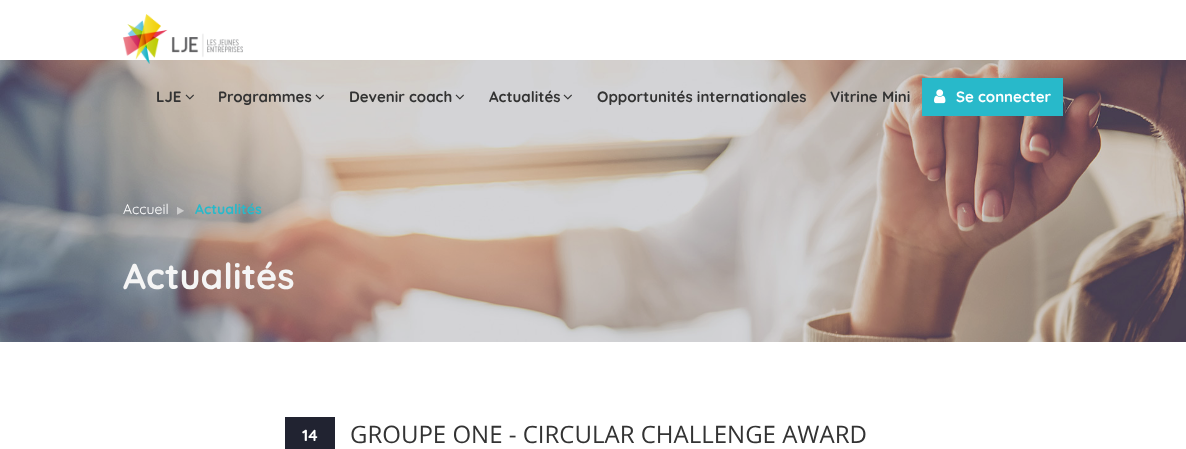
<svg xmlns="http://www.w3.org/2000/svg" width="1186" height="449">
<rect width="100%" height="100%" fill="#fff"/>
<image x="0" y="60" width="1186" height="282" href="media/6.png"/>
<image x="123" y="14" width="120" height="50" href="media/1.png"/>
<text x="156" y="102" style="font-family:Quicksand;font-size:15px;font-weight:bold;fill:#333">LJE</text>
<image x="185" y="94" width="9" height="6" href="media/2.png"/>
<text x="218" y="102" style="font-family:Quicksand;font-size:15px;font-weight:bold;fill:#333">Programmes</text>
<image x="315" y="94" width="9" height="6" href="media/3.png"/>
<text x="349" y="102" style="font-family:Quicksand;font-size:15px;font-weight:bold;fill:#333">Devenir coach</text>
<image x="455" y="94" width="9" height="6" href="media/4.png"/>
<text x="489" y="102" style="font-family:Quicksand;font-size:15px;font-weight:bold;fill:#333">Actualités</text>
<image x="563" y="94" width="9" height="6" href="media/4.png"/>
<text x="597" y="102" style="font-family:Quicksand;font-size:15px;font-weight:bold;fill:#333">Opportunités internationales</text>
<text x="830" y="102" style="font-family:Quicksand;font-size:15px;font-weight:bold;fill:#333">Vitrine Mini</text>
<rect x="922" y="78" width="141" height="38" fill="#28b9ca"/>
<image x="934" y="89" width="12" height="15" href="media/5.png"/>
<text x="956" y="102" style="font-family:Quicksand;font-size:15px;font-weight:bold;fill:#fff">Se connecter</text>
<text x="123" y="214" style="font-family:Quicksand;font-size:14px;fill:#fff">Accueil</text>
<image x="177" y="207" width="7" height="8" href="media/7.png"/>
<text x="195" y="214" style="font-family:Quicksand;font-size:14px;font-weight:bold;fill:#28b9ca">Actualités</text>
<text x="123" y="289" style="font-family:Quicksand;font-size:36px;font-weight:bold;fill:#f5f5f5">Actualités</text>
<rect x="285" y="417" width="50" height="32" fill="#212331"/>
<text x="302" y="441" style="font-family:Quicksand;font-size:16px;font-weight:bold;fill:#fff">14</text>
<text x="350" y="443" style="font-family:Open Sans;font-size:24px;fill:#333">GROUPE ONE - CIRCULAR CHALLENGE AWARD</text>
</svg>
